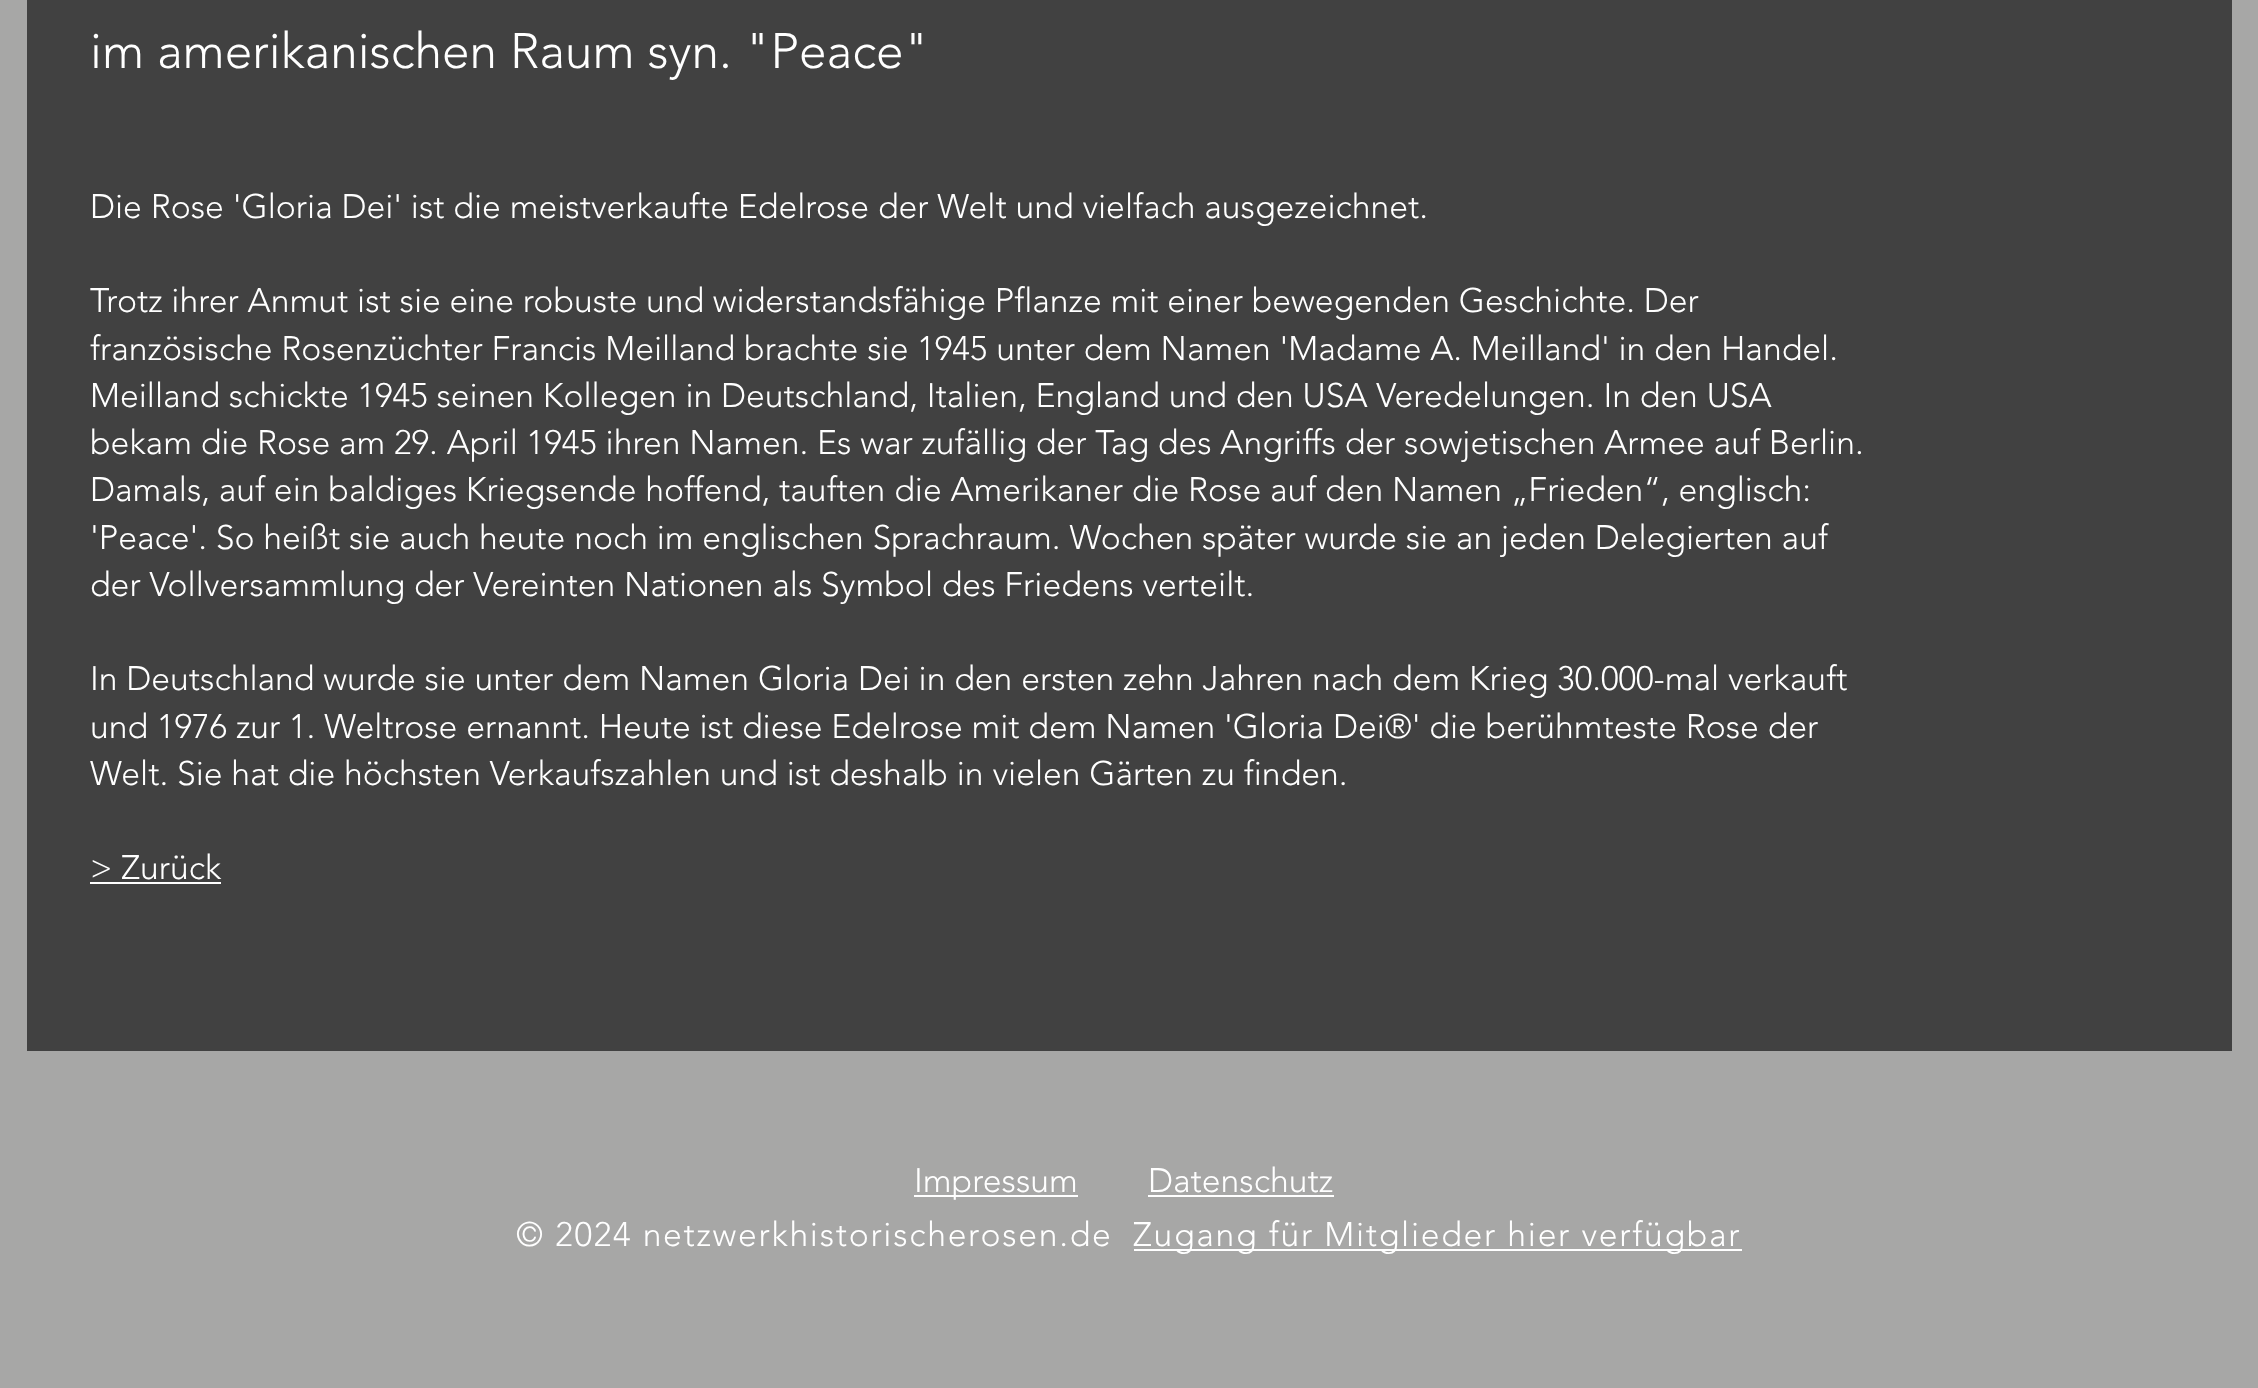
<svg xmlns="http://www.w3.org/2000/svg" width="2258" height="1388">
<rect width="100%" height="100%" fill="#a7a7a6"/>
<rect x="27" width="2205" height="1051" fill="#414141"/>
<text x="90" y="68" style="font-family:'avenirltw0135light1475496';font-size:49.5px;font-weight:300;fill:#fff">im amerikanischen Raum syn. "Peace"</text>
<text x="90" y="218" style="font-family:'avenirltw0135light1475496';font-size:33.75px;font-weight:300;fill:#fff">Die Rose 'Gloria Dei' ist die meistverkaufte Edelrose der Welt und vielfach ausgezeichnet.</text>
<text x="90" y="312" style="font-family:'avenirltw0135light1475496';font-size:33.75px;font-weight:300;fill:#fff">Trotz ihrer Anmut ist sie eine robuste und widerstandsfähige Pflanze mit einer bewegenden Geschichte. Der</text>
<text x="90" y="360" style="font-family:'avenirltw0135light1475496';font-size:33.75px;font-weight:300;fill:#fff">französische Rosenzüchter Francis Meilland brachte sie 1945 unter dem Namen 'Madame A. Meilland' in den Handel.</text>
<text x="90" y="407" style="font-family:'avenirltw0135light1475496';font-size:33.75px;font-weight:300;fill:#fff">Meilland schickte 1945 seinen Kollegen in Deutschland, Italien, England und den USA Veredelungen. In den USA</text>
<text x="90" y="454" style="font-family:'avenirltw0135light1475496';font-size:33.75px;font-weight:300;fill:#fff">bekam die Rose am 29. April 1945 ihren Namen. Es war zufällig der Tag des Angriffs der sowjetischen Armee auf Berlin.</text>
<text x="90" y="501" style="font-family:'avenirltw0135light1475496';font-size:33.75px;font-weight:300;fill:#fff">Damals, auf ein baldiges Kriegsende hoffend, tauften die Amerikaner die Rose auf den Namen „Frieden“, englisch:</text>
<text x="90" y="549" style="font-family:'avenirltw0135light1475496';font-size:33.75px;font-weight:300;fill:#fff">'Peace'. So heißt sie auch heute noch im englischen Sprachraum. Wochen später wurde sie an jeden Delegierten auf</text>
<text x="90" y="596" style="font-family:'avenirltw0135light1475496';font-size:33.75px;font-weight:300;fill:#fff">der Vollversammlung der Vereinten Nationen als Symbol des Friedens verteilt.</text>
<text x="90" y="690" style="font-family:'avenirltw0135light1475496';font-size:33.75px;font-weight:300;fill:#fff">In Deutschland wurde sie unter dem Namen Gloria Dei in den ersten zehn Jahren nach dem Krieg 30.000-mal verkauft</text>
<text x="90" y="738" style="font-family:'avenirltw0135light1475496';font-size:33.75px;font-weight:300;fill:#fff">und 1976 zur 1. Weltrose ernannt. Heute ist diese Edelrose mit dem Namen 'Gloria Dei®' die berühmteste Rose der</text>
<text x="90" y="785" style="font-family:'avenirltw0135light1475496';font-size:33.75px;font-weight:300;fill:#fff">Welt. Sie hat die höchsten Verkaufszahlen und ist deshalb in vielen Gärten zu finden.</text>
<text x="90" y="879" style="font-family:'avenirltw0135light1475496';font-size:33.75px;font-weight:300;fill:#fff">&gt; Zurück</text>
<rect x="90" y="882" width="131" height="2" fill="#fff"/>
<rect x="914" y="1195" width="164" height="2" fill="#fff"/>
<text x="914" y="1192" style="font-family:'avenirltw0135light1475496';font-size:33.75px;font-weight:300;fill:#fff">Impressum</text>
<text x="1148" y="1192" style="font-family:'avenirltw0135light1475496';font-size:33.75px;font-weight:300;fill:#fff">Datenschutz</text>
<rect x="1148" y="1195" width="186" height="2" fill="#fff"/>
<text x="516" y="1246" style="font-family:'avenirltw0135light1475496';font-size:33.75px;font-weight:300;letter-spacing:1.7px;fill:#fff">© 2024 netzwerkhistorischerosen.de</text>
<rect x="1134" y="1249" width="608" height="2" fill="#fff"/>
<text x="1133" y="1246" style="font-family:'avenirltw0135light1475496';font-size:33.75px;font-weight:300;letter-spacing:1.7px;fill:#fff">Zugang für Mitglieder hier verfügbar</text>
</svg>
